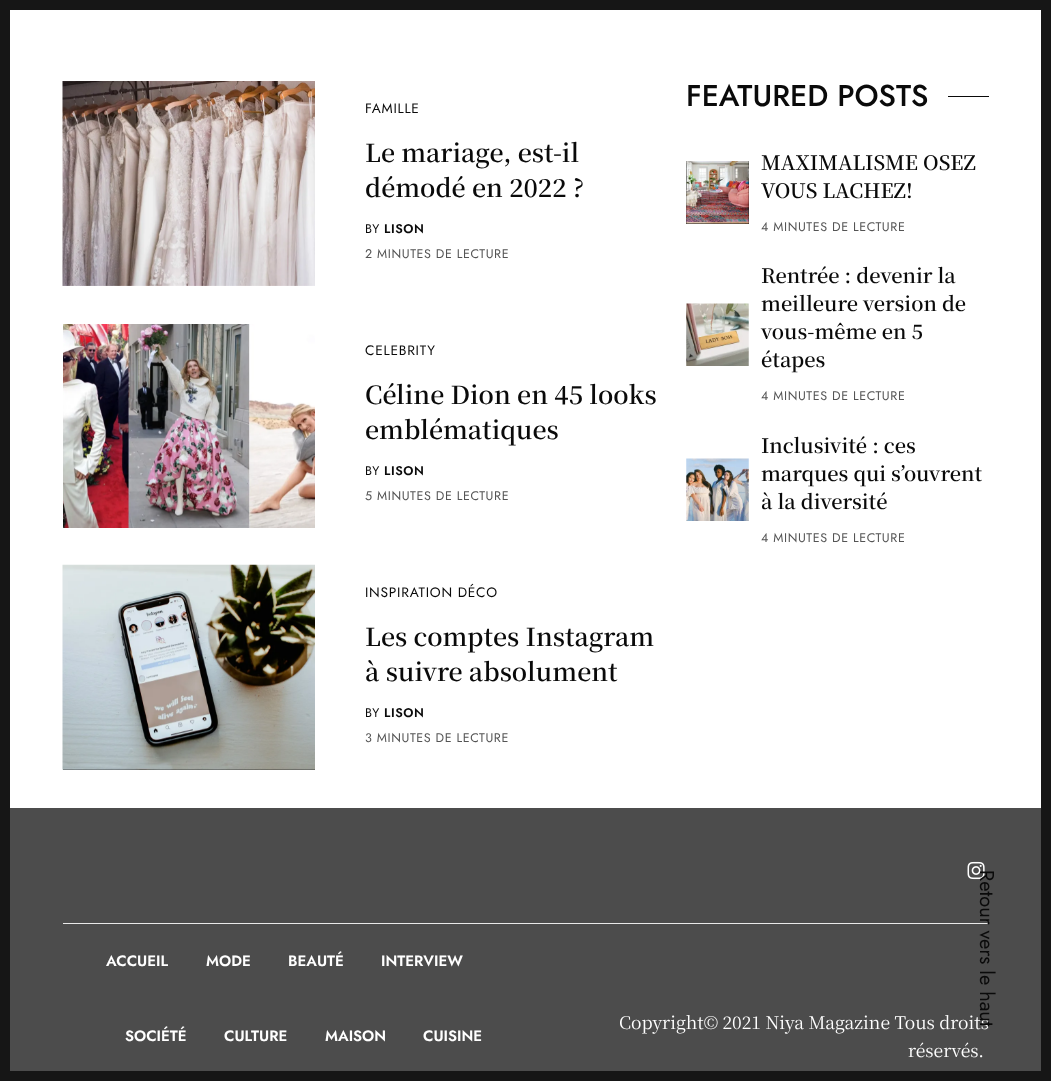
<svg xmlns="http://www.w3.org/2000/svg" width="1051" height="1081">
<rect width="100%" height="100%" fill="#fff"/>
<image x="62" y="81" width="253" height="205" href="media/1.png"/>
<image x="63" y="324" width="252" height="204" href="media/2.png"/>
<rect x="63" y="769" width="252" height="1" fill="#0a0a0a"/>
<image x="62" y="564" width="253" height="206" href="media/3.png"/>
<rect x="948" y="96" width="41" height="1" fill="#0a0a0a"/>
<rect x="686" y="161" width="63" height="63" fill="#0a0a0a"/>
<image x="686" y="161" width="63" height="63" href="media/4.png"/>
<image x="686" y="303" width="63" height="63" href="media/5.png"/>
<image x="686" y="458" width="63" height="63" href="media/6.png"/>
<rect x="10" y="808" width="1031" height="263" fill="#4c4c4c"/>
<image x="967" y="861" width="18" height="19" href="media/7.png"/>
<rect x="63" y="923" width="926" height="1" fill="#e9e9e9"/>
<rect x="5" y="5" width="1041" height="1071" fill="none" stroke="#161616" stroke-width="10"/>
<text x="365" y="113" style="font-family:Jost;font-size:13.75px;letter-spacing:0.75px;fill:#0a0a0a">FAMILLE</text>
<text x="365" y="162" style="font-family:Noto Serif KR;font-size:25px;font-weight:600;fill:#0a0a0a">Le mariage, est-il</text>
<text x="365" y="197" style="font-family:Noto Serif KR;font-size:25px;font-weight:600;fill:#0a0a0a">démodé en 2022 ?</text>
<text x="365" y="233" style="font-family:Jost;font-size:12.5px;letter-spacing:0.6px;fill:#0a0a0a">BY</text>
<text x="384" y="233" style="font-family:Jost;font-size:12.5px;font-weight:600;letter-spacing:0.6px;fill:#0a0a0a">LISON</text>
<text x="365" y="258" style="font-family:Jost;font-size:12.5px;letter-spacing:0.6px;fill:#545454">2 MINUTES DE LECTURE</text>
<text x="365" y="355" style="font-family:Jost;font-size:13.75px;letter-spacing:0.75px;fill:#0a0a0a">CELEBRITY</text>
<text x="365" y="404" style="font-family:Noto Serif KR;font-size:25px;font-weight:600;fill:#0a0a0a">Céline Dion en 45 looks</text>
<text x="365" y="439" style="font-family:Noto Serif KR;font-size:25px;font-weight:600;fill:#0a0a0a">emblématiques</text>
<text x="365" y="475" style="font-family:Jost;font-size:12.5px;letter-spacing:0.6px;fill:#0a0a0a">BY</text>
<text x="384" y="475" style="font-family:Jost;font-size:12.5px;font-weight:600;letter-spacing:0.6px;fill:#0a0a0a">LISON</text>
<text x="365" y="500" style="font-family:Jost;font-size:12.5px;letter-spacing:0.6px;fill:#545454">5 MINUTES DE LECTURE</text>
<text x="365" y="597" style="font-family:Jost;font-size:13.75px;letter-spacing:0.75px;fill:#0a0a0a">INSPIRATION DÉCO</text>
<text x="365" y="646" style="font-family:Noto Serif KR;font-size:25px;font-weight:600;fill:#0a0a0a">Les comptes Instagram</text>
<text x="365" y="681" style="font-family:Noto Serif KR;font-size:25px;font-weight:600;fill:#0a0a0a">à suivre absolument</text>
<text x="365" y="717" style="font-family:Jost;font-size:12.5px;letter-spacing:0.6px;fill:#0a0a0a">BY</text>
<text x="384" y="717" style="font-family:Jost;font-size:12.5px;font-weight:600;letter-spacing:0.6px;fill:#0a0a0a">LISON</text>
<text x="365" y="742" style="font-family:Jost;font-size:12.5px;letter-spacing:0.6px;fill:#545454">3 MINUTES DE LECTURE</text>
<text x="686" y="106" style="font-family:Jost;font-size:30px;font-weight:500;fill:#0a0a0a">FEATURED POSTS</text>
<text x="761" y="170" style="font-family:Noto Serif KR;font-size:20px;font-weight:600;fill:#0a0a0a">MAXIMALISME OSEZ</text>
<text x="761" y="198" style="font-family:Noto Serif KR;font-size:20px;font-weight:600;fill:#0a0a0a">VOUS LACHEZ!</text>
<text x="761" y="231" style="font-family:Jost;font-size:12.5px;letter-spacing:0.6px;fill:#545454">4 MINUTES DE LECTURE</text>
<text x="761" y="283" style="font-family:Noto Serif KR;font-size:20px;font-weight:600;fill:#0a0a0a">Rentrée : devenir la</text>
<text x="761" y="311" style="font-family:Noto Serif KR;font-size:20px;font-weight:600;fill:#0a0a0a">meilleure version de</text>
<text x="761" y="339" style="font-family:Noto Serif KR;font-size:20px;font-weight:600;fill:#0a0a0a">vous-même en 5</text>
<text x="761" y="367" style="font-family:Noto Serif KR;font-size:20px;font-weight:600;fill:#0a0a0a">étapes</text>
<text x="761" y="400" style="font-family:Jost;font-size:12.5px;letter-spacing:0.6px;fill:#545454">4 MINUTES DE LECTURE</text>
<text x="761" y="453" style="font-family:Noto Serif KR;font-size:20px;font-weight:600;fill:#0a0a0a">Inclusivité : ces</text>
<text x="761" y="481" style="font-family:Noto Serif KR;font-size:20px;font-weight:600;fill:#0a0a0a">marques qui s’ouvrent</text>
<text x="761" y="509" style="font-family:Noto Serif KR;font-size:20px;font-weight:600;fill:#0a0a0a">à la diversité</text>
<text x="761" y="542" style="font-family:Jost;font-size:12.5px;letter-spacing:0.6px;fill:#545454">4 MINUTES DE LECTURE</text>
<text x="619" y="1029" style="font-family:Noto Serif KR;font-size:17.5px;fill:#fff">Copyright© 2021 Niya Magazine Tous droits</text>
<text x="980" y="870" transform="rotate(90 980 870)" style="font-family:Jost;font-size:20px;fill:#0a0a0a">Retour vers le haut</text>
<text x="106" y="966" style="font-family:Jost;font-size:15px;font-weight:600;fill:#fff">ACCUEIL</text>
<text x="206" y="966" style="font-family:Jost;font-size:15px;font-weight:600;fill:#fff">MODE</text>
<text x="288" y="966" style="font-family:Jost;font-size:15px;font-weight:600;fill:#fff">BEAUTÉ</text>
<text x="381" y="966" style="font-family:Jost;font-size:15px;font-weight:600;fill:#fff">INTERVIEW</text>
<text x="125" y="1041" style="font-family:Jost;font-size:15px;font-weight:600;fill:#fff">SOCIÉTÉ</text>
<text x="224" y="1041" style="font-family:Jost;font-size:15px;font-weight:600;fill:#fff">CULTURE</text>
<text x="325" y="1041" style="font-family:Jost;font-size:15px;font-weight:600;fill:#fff">MAISON</text>
<text x="423" y="1041" style="font-family:Jost;font-size:15px;font-weight:600;fill:#fff">CUISINE</text>
<text x="908" y="1057" style="font-family:Noto Serif KR;font-size:17.5px;fill:#fff">réservés.</text>
</svg>
